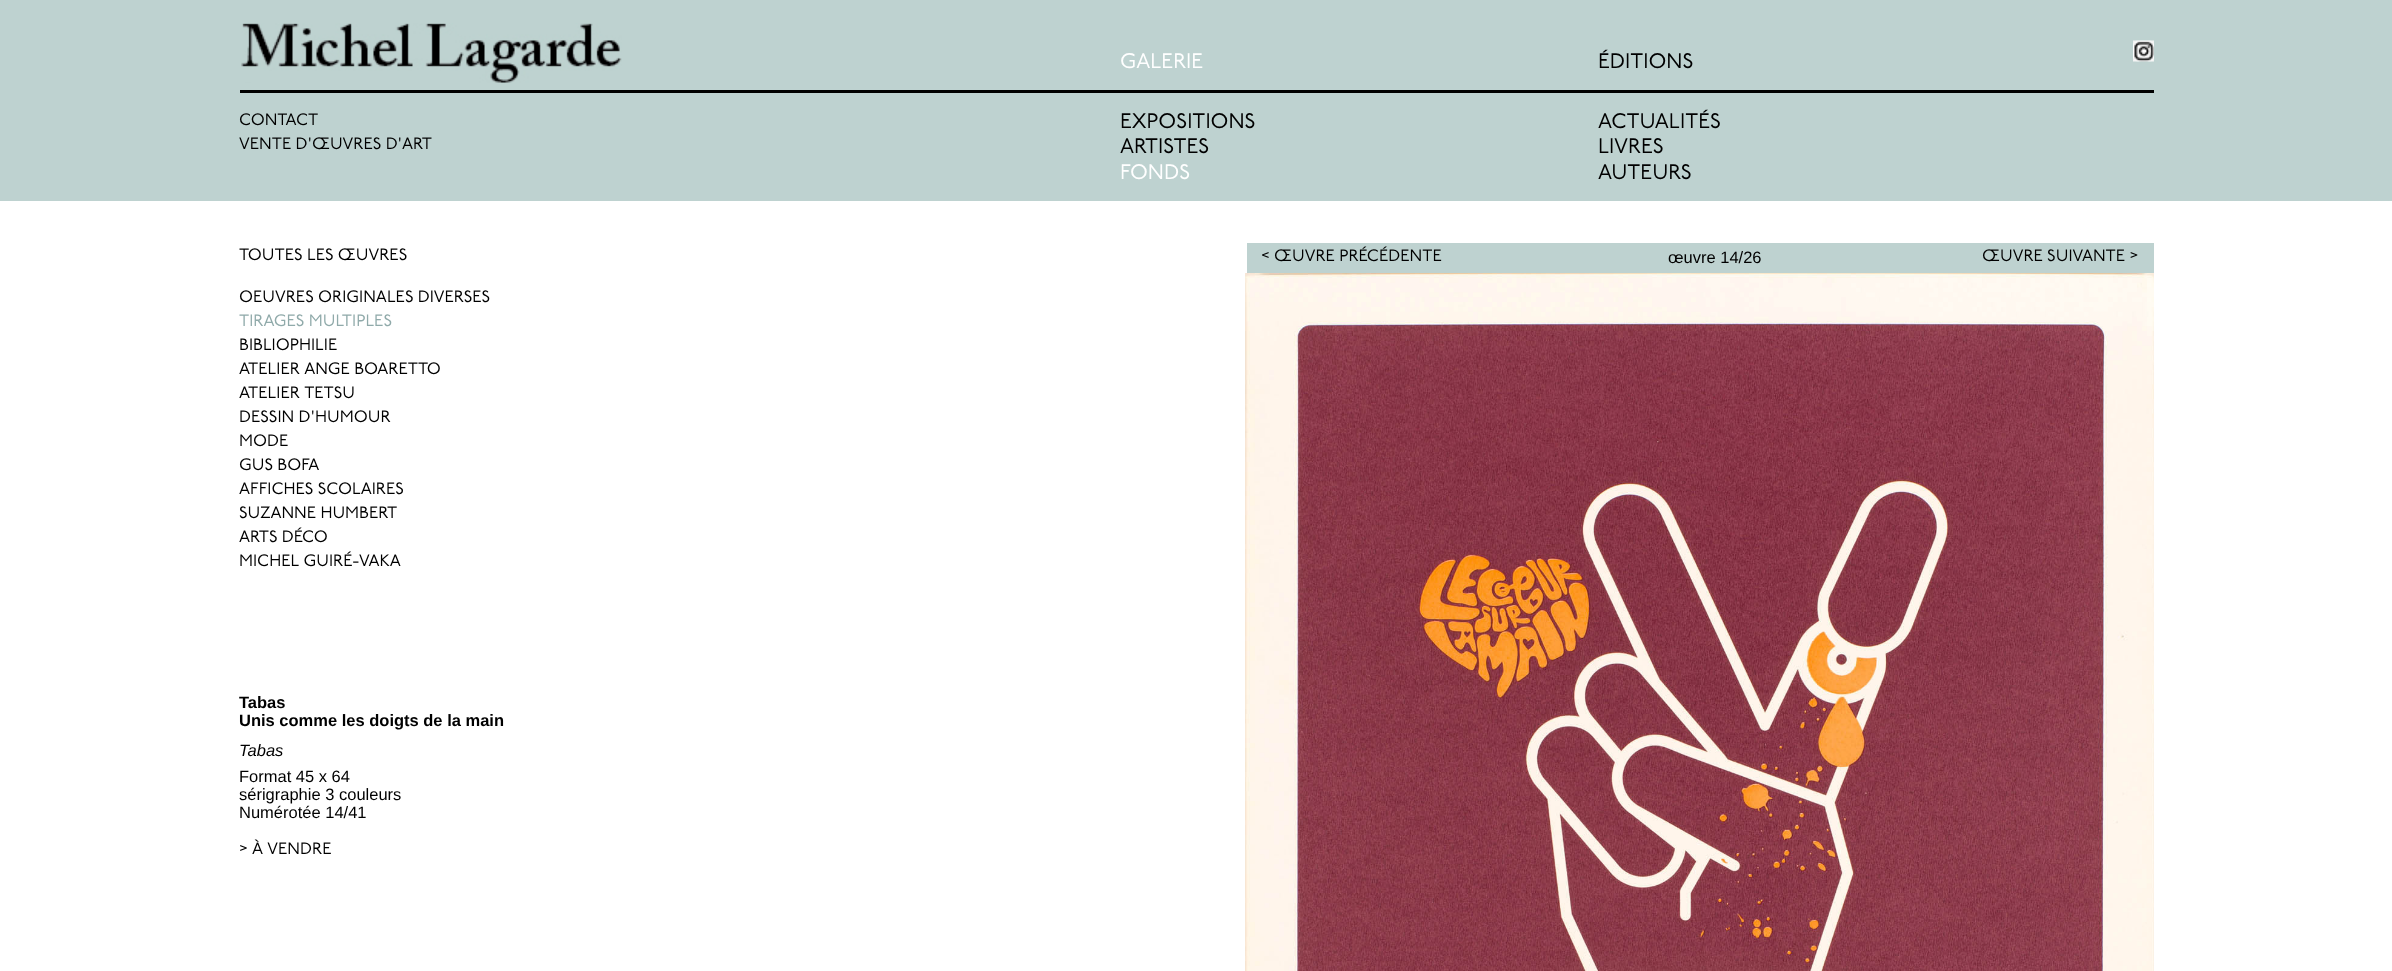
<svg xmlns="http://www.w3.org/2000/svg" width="2392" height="971">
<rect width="100%" height="100%" fill="#fff"/>
<rect width="2392" height="201" fill="#bed2d0"/>
<rect x="240" y="90" width="1914" height="3" fill="#000"/>
<image x="241" y="23" width="381" height="60" href="media/1.png"/>
<text x="1120" y="68" style="font-family:'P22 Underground';font-size:21px;fill:#fff">GALERIE</text>
<text x="1120" y="128" style="font-family:'P22 Underground';font-size:21px;fill:#000">EXPOSITIONS</text>
<text x="1120" y="153" style="font-family:'P22 Underground';font-size:21px;fill:#000">ARTISTES</text>
<text x="1120" y="179" style="font-family:'P22 Underground';font-size:21px;fill:#fff">FONDS</text>
<text x="1598" y="68" style="font-family:'P22 Underground';font-size:21px;fill:#000">ÉDITIONS</text>
<text x="1598" y="128" style="font-family:'P22 Underground';font-size:21px;fill:#000">ACTUALITÉS</text>
<text x="1598" y="153" style="font-family:'P22 Underground';font-size:21px;fill:#000">LIVRES</text>
<text x="1598" y="179" style="font-family:'P22 Underground';font-size:21px;fill:#000">AUTEURS</text>
<image x="2133" y="40" width="21" height="22" href="media/2.png"/>
<text x="239" y="125" style="font-family:'P22 Underground';font-size:16.5px;fill:#000">CONTACT</text>
<text x="239" y="149" style="font-family:'P22 Underground';font-size:16.5px;fill:#000">VENTE D'ŒUVRES D'ART</text>
<text x="239" y="260" style="font-family:'P22 Underground';font-size:16.5px;fill:#000">TOUTES LES ŒUVRES</text>
<text x="239" y="302" style="font-family:'P22 Underground';font-size:16.5px;fill:#000">OEUVRES ORIGINALES DIVERSES</text>
<text x="239" y="326" style="font-family:'P22 Underground';font-size:16.5px;fill:#90aaaa">TIRAGES MULTIPLES</text>
<text x="239" y="350" style="font-family:'P22 Underground';font-size:16.5px;fill:#000">BIBLIOPHILIE</text>
<text x="239" y="374" style="font-family:'P22 Underground';font-size:16.5px;fill:#000">ATELIER ANGE BOARETTO</text>
<text x="239" y="398" style="font-family:'P22 Underground';font-size:16.5px;fill:#000">ATELIER TETSU</text>
<text x="239" y="422" style="font-family:'P22 Underground';font-size:16.5px;fill:#000">DESSIN D'HUMOUR</text>
<text x="239" y="446" style="font-family:'P22 Underground';font-size:16.5px;fill:#000">MODE</text>
<text x="239" y="470" style="font-family:'P22 Underground';font-size:16.5px;fill:#000">GUS BOFA</text>
<text x="239" y="494" style="font-family:'P22 Underground';font-size:16.5px;fill:#000">AFFICHES SCOLAIRES</text>
<text x="239" y="518" style="font-family:'P22 Underground';font-size:16.5px;fill:#000">SUZANNE HUMBERT</text>
<text x="239" y="542" style="font-family:'P22 Underground';font-size:16.5px;fill:#000">ARTS DÉCO</text>
<text x="239" y="566" style="font-family:'P22 Underground';font-size:16.5px;fill:#000">MICHEL GUIRÉ-VAKA</text>
<text x="239" y="708" style="font-family:Liberation Sans;font-size:16.5px;font-weight:bold;fill:#000">Tabas</text>
<text x="239" y="726" style="font-family:Liberation Sans;font-size:16.5px;font-weight:bold;fill:#000">Unis comme les doigts de la main</text>
<text x="239" y="756" style="font-family:Liberation Sans;font-size:16.5px;font-style:italic;fill:#000">Tabas</text>
<text x="239" y="782" style="font-family:Liberation Sans;font-size:16.5px;fill:#000">Format 45 x 64</text>
<text x="239" y="800" style="font-family:Liberation Sans;font-size:16.5px;fill:#000">sérigraphie 3 couleurs</text>
<text x="239" y="818" style="font-family:Liberation Sans;font-size:16.5px;fill:#000">Numérotée 14/41</text>
<text x="239" y="854" style="font-family:'P22 Underground';font-size:16.5px;fill:#000">&gt; À VENDRE</text>
<rect x="1247" y="243" width="907" height="30" fill="#bed2d0"/>
<text x="1261" y="261" style="font-family:'P22 Underground';font-size:16.5px;fill:#000">&lt; ŒUVRE PRÉCÉDENTE</text>
<text x="1668" y="263" style="font-family:Liberation Sans;font-size:16.5px;fill:#000">œuvre 14/26</text>
<text x="1982" y="261" style="font-family:'P22 Underground';font-size:16.5px;fill:#000">ŒUVRE SUIVANTE &gt;</text>
<image x="1245" y="273" width="909" height="698" href="media/3.png"/>
</svg>
